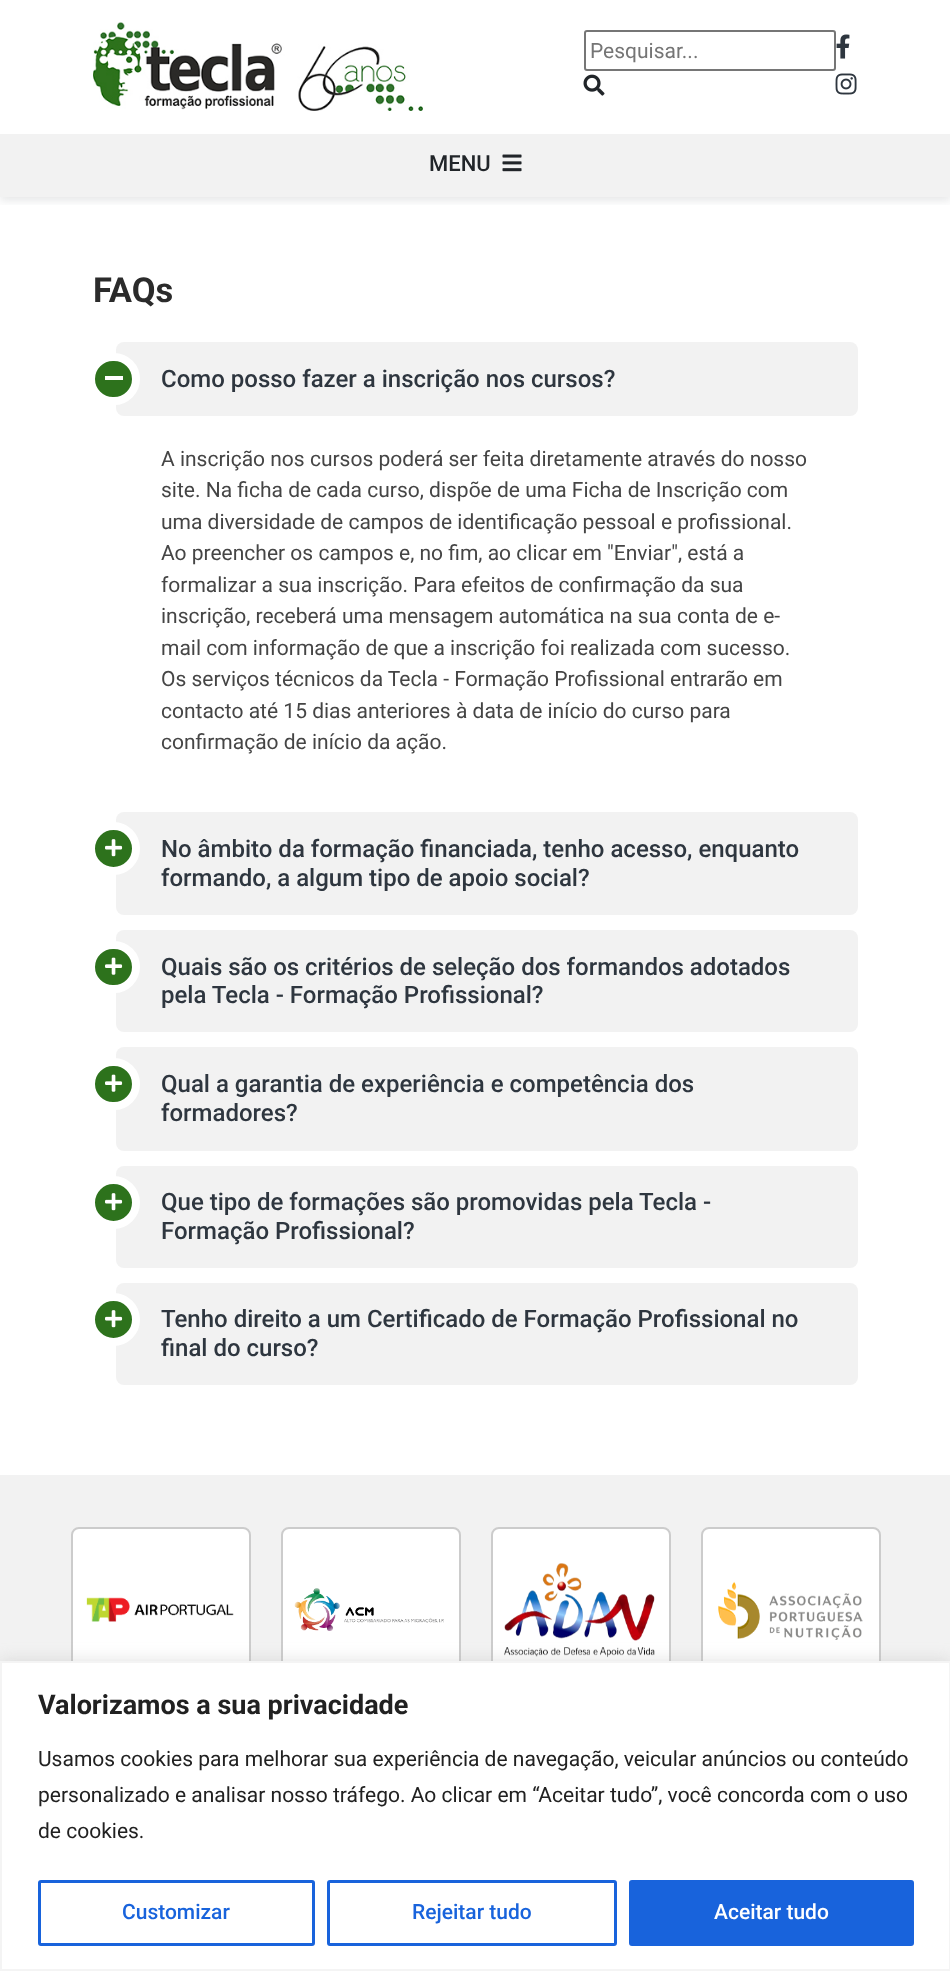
<svg xmlns="http://www.w3.org/2000/svg" width="950" height="1971">
<defs>
<clipPath id="clip1"><rect x="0" y="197" width="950" height="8"/></clipPath>
</defs>
<rect width="100%" height="100%" fill="#fff"/>
<g clip-path="url(#clip1)">
<rect y="5" width="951" height="196" fill="#393f481f" filter="blur(4px)"/>
</g>
<image x="93" y="22" width="330" height="89" href="media/1.png"/>
<rect x="585" y="31" width="250" height="39" rx="2" fill="none" stroke="#767676" stroke-width="2"/>
<text x="590" y="58" style="font-family:Roboto;font-size:21px;fill:#757575">Pesquisar...</text>
<image x="583" y="74" width="22" height="22" href="media/2.png"/>
<image x="836" y="34" width="14" height="25" href="media/3.png"/>
<image x="835" y="73" width="22" height="22" href="media/4.png"/>
<rect y="134" width="950" height="63" fill="#f2f2f2"/>
<text x="429" y="171" style="font-family:Roboto;font-size:22px;font-weight:500;fill:#212529">MENU</text>
<image x="502" y="154" width="20" height="18" href="media/5.png"/>
<text x="93" y="302" style="font-family:Roboto;font-size:34.5px;font-weight:bold;fill:#2b2b2b">FAQs</text>
<rect x="116" y="342" width="742" height="74" rx="8" fill="#f2f2f2"/>
<rect x="91" y="357" width="45" height="44" rx="22" fill="#2d721c" stroke="#fff" stroke-width="8"/>
<rect x="105" y="376" width="18" height="4" fill="#fff"/>
<text x="161" y="387" style="font-family:Roboto;font-size:24px;font-weight:500;fill:#2e363f">Como posso fazer a inscrição nos cursos?</text>
<text x="161" y="466" style="font-family:Roboto;font-size:21px;fill:#454545">A inscrição nos cursos poderá ser feita diretamente através do nosso</text>
<text x="161" y="497" style="font-family:Roboto;font-size:21px;fill:#454545">site. Na ficha de cada curso, dispõe de uma Ficha de Inscrição com</text>
<text x="161" y="529" style="font-family:Roboto;font-size:21px;fill:#454545">uma diversidade de campos de identificação pessoal e profissional.</text>
<text x="161" y="560" style="font-family:Roboto;font-size:21px;fill:#454545">Ao preencher os campos e, no fim, ao clicar em "Enviar", está a</text>
<text x="161" y="592" style="font-family:Roboto;font-size:21px;fill:#454545">formalizar a sua inscrição. Para efeitos de confirmação da sua</text>
<text x="161" y="623" style="font-family:Roboto;font-size:21px;fill:#454545">inscrição, receberá uma mensagem automática na sua conta de e-</text>
<text x="161" y="655" style="font-family:Roboto;font-size:21px;fill:#454545">mail com informação de que a inscrição foi realizada com sucesso.</text>
<text x="161" y="686" style="font-family:Roboto;font-size:21px;fill:#454545">Os serviços técnicos da Tecla - Formação Profissional entrarão em</text>
<text x="161" y="718" style="font-family:Roboto;font-size:21px;fill:#454545">contacto até 15 dias anteriores à data de início do curso para</text>
<text x="161" y="749" style="font-family:Roboto;font-size:21px;fill:#454545">confirmação de início da ação.</text>
<rect x="116" y="812" width="742" height="103" rx="8" fill="#f2f2f2"/>
<circle cx="113.5" cy="848.5" r="22.5" fill="#2d721c" stroke="#fff" stroke-width="8"/>
<image x="105" y="839" width="18" height="18" href="media/6.png"/>
<text x="161" y="857" style="font-family:Roboto;font-size:24px;font-weight:500;fill:#2e363f">No âmbito da formação financiada, tenho acesso, enquanto</text>
<text x="161" y="886" style="font-family:Roboto;font-size:24px;font-weight:500;fill:#2e363f">formando, a algum tipo de apoio social?</text>
<rect x="116" y="930" width="742" height="102" rx="8" fill="#f2f2f2"/>
<rect x="91" y="945" width="45" height="44" rx="22" fill="#2d721c" stroke="#fff" stroke-width="8"/>
<image x="105" y="957" width="18" height="18" href="media/7.png"/>
<text x="161" y="975" style="font-family:Roboto;font-size:24px;font-weight:500;fill:#2e363f">Quais são os critérios de seleção dos formandos adotados</text>
<text x="161" y="1003" style="font-family:Roboto;font-size:24px;font-weight:500;fill:#2e363f">pela Tecla - Formação Profissional?</text>
<rect x="116" y="1047" width="742" height="104" rx="8" fill="#f2f2f2"/>
<rect x="91" y="1062" width="45" height="44" rx="22" fill="#2d721c" stroke="#fff" stroke-width="8"/>
<image x="105" y="1074" width="18" height="18" href="media/7.png"/>
<text x="161" y="1092" style="font-family:Roboto;font-size:24px;font-weight:500;fill:#2e363f">Qual a garantia de experiência e competência dos</text>
<text x="161" y="1121" style="font-family:Roboto;font-size:24px;font-weight:500;fill:#2e363f">formadores?</text>
<rect x="116" y="1166" width="742" height="102" rx="8" fill="#f2f2f2"/>
<circle cx="113.5" cy="1202.5" r="22.5" fill="#2d721c" stroke="#fff" stroke-width="8"/>
<image x="105" y="1193" width="18" height="18" href="media/6.png"/>
<text x="161" y="1210" style="font-family:Roboto;font-size:24px;font-weight:500;fill:#2e363f">Que tipo de formações são promovidas pela Tecla -</text>
<text x="161" y="1239" style="font-family:Roboto;font-size:24px;font-weight:500;fill:#2e363f">Formação Profissional?</text>
<rect x="116" y="1283" width="742" height="102" rx="8" fill="#f2f2f2"/>
<circle cx="113.5" cy="1319.5" r="22.5" fill="#2d721c" stroke="#fff" stroke-width="8"/>
<image x="105" y="1310" width="18" height="18" href="media/6.png"/>
<text x="161" y="1327" style="font-family:Roboto;font-size:24px;font-weight:500;fill:#2e363f">Tenho direito a um Certificado de Formação Profissional no</text>
<text x="161" y="1356" style="font-family:Roboto;font-size:24px;font-weight:500;fill:#2e363f">final do curso?</text>
<rect y="1475" width="950" height="186" fill="#f2f2f2"/>
<rect x="72" y="1528" width="178" height="163" rx="7" fill="#fff" stroke="#ccc" stroke-width="2"/>
<image x="86" y="1597" width="148" height="25" href="media/8.png"/>
<rect x="282" y="1528" width="178" height="163" rx="7" fill="#fff" stroke="#ccc" stroke-width="2"/>
<image x="294" y="1588" width="150" height="43" href="media/9.png"/>
<rect x="492" y="1528" width="178" height="163" rx="7" fill="#fff" stroke="#ccc" stroke-width="2"/>
<image x="504" y="1563" width="151" height="95" href="media/10.png"/>
<rect x="702" y="1528" width="178" height="163" rx="7" fill="#fff" stroke="#ccc" stroke-width="2"/>
<image x="718" y="1581" width="145" height="59" href="media/11.png"/>
<rect y="1659" width="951" height="311" fill="#acabab4d" filter="blur(7.5px)"/>
<rect x="1" y="1662" width="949" height="308" fill="#fff" stroke="#f4f4f4" stroke-width="2"/>
<text x="38" y="1714" style="font-family:Roboto;font-size:27px;font-weight:bold;fill:#212121">Valorizamos a sua privacidade</text>
<text x="38" y="1766" style="font-family:Roboto;font-size:21px;fill:#212121">Usamos cookies para melhorar sua experiência de navegação, veicular anúncios ou conteúdo</text>
<text x="38" y="1802" style="font-family:Roboto;font-size:21px;fill:#212121">personalizado e analisar nosso tráfego. Ao clicar em “Aceitar tudo”, você concorda com o uso</text>
<text x="38" y="1838" style="font-family:Roboto;font-size:21px;fill:#212121">de cookies.</text>
<rect x="39.5" y="1881.5" width="274" height="63" rx="1.5" fill="none" stroke="#1863dc" stroke-width="3"/>
<text x="122" y="1919" style="font-family:Roboto;font-size:21px;font-weight:500;fill:#1863dc">Customizar</text>
<rect x="328.5" y="1881.5" width="287" height="63" rx="1.5" fill="none" stroke="#1863dc" stroke-width="3"/>
<text x="412" y="1919" style="font-family:Roboto;font-size:21px;font-weight:500;fill:#1863dc">Rejeitar tudo</text>
<rect x="630.5" y="1881.5" width="282" height="63" rx="1.5" fill="#1863dc" stroke="#1863dc" stroke-width="3"/>
<text x="714" y="1919" style="font-family:Roboto;font-size:21px;font-weight:500;fill:#fff">Aceitar tudo</text>
</svg>
